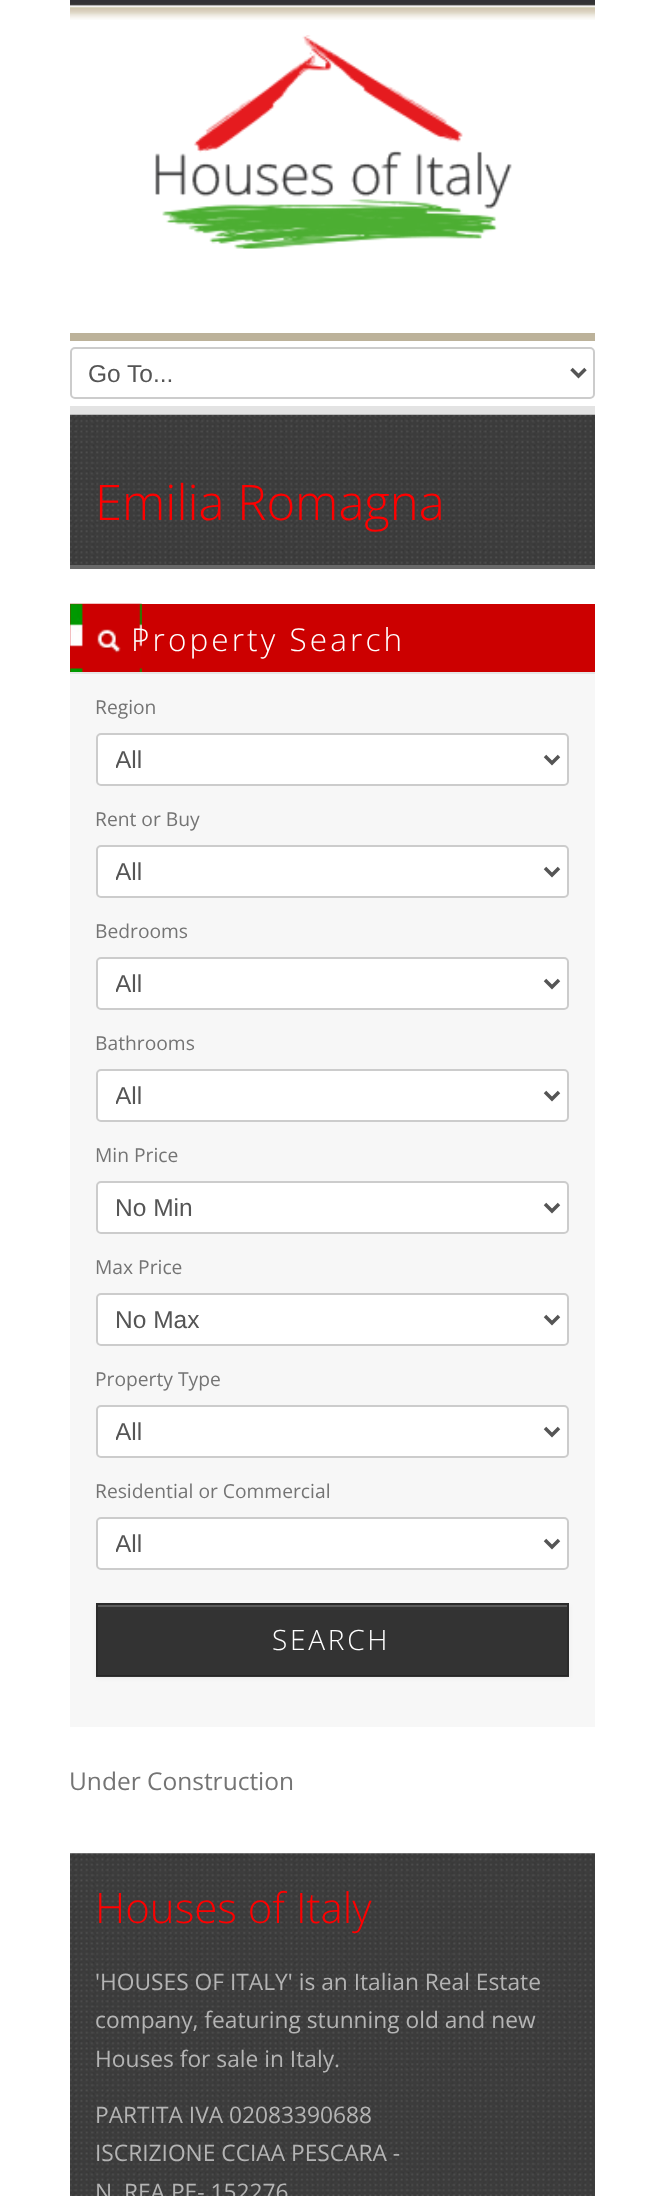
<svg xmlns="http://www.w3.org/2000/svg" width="663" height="2196">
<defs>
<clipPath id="clip1"><rect x="116" y="744" width="413" height="31"/></clipPath>
<clipPath id="clip2"><rect x="116" y="856" width="413" height="31"/></clipPath>
<clipPath id="clip3"><rect x="116" y="968" width="413" height="31"/></clipPath>
<clipPath id="clip4"><rect x="116" y="1080" width="413" height="31"/></clipPath>
<clipPath id="clip5"><rect x="116" y="1416" width="413" height="31"/></clipPath>
<clipPath id="clip6"><rect x="116" y="1528" width="413" height="31"/></clipPath>
</defs>
<rect width="100%" height="100%" fill="#fff"/>
<image x="70" y="0" width="525" height="20" href="media/1.png"/>
<image x="155" y="35" width="357" height="214" href="media/2.png"/>
<rect x="70" y="333" width="525" height="8" fill="#bcb29a"/>
<rect x="70" y="406" width="525" height="9" fill="#e3e3e3"/>
<rect x="71" y="348" width="523" height="50" rx="4" fill="none" stroke="#ccc" stroke-width="2"/>
<path d="M571.5 369l7 7l7-7" fill="none" stroke="#555" stroke-width="3.5"/>
<text x="88" y="382" style="font-family:Liberation Sans;font-size:24.5px;fill:#555">Go To...</text>
<image x="70" y="414" width="525" height="151" href="media/3.png"/>
<rect x="70" y="565" width="525" height="4" fill="#696969"/>
<text x="95" y="520" style="font-family:Open Sans;font-size:49px;font-weight:300;fill:#f00">Emilia Romagna</text>
<rect x="141" y="604" width="454" height="68" fill="#c00"/>
<image x="70" y="603" width="72" height="69" href="media/4.png"/>
<image x="97" y="629" width="24" height="24" href="media/5.png"/>
<text x="131" y="651" style="font-family:Open Sans;font-size:31.5px;font-weight:300;letter-spacing:3.1px;fill:#fff">Property Search</text>
<rect x="70" y="674" width="525" height="1053" fill="#f7f7f7"/>
<rect x="70" y="672" width="525" height="2" fill="#e5e5e5"/>
<text x="95" y="714" style="font-family:Open Sans;font-size:19.25px;fill:#747474">Region</text>
<rect x="97" y="734" width="471" height="51" rx="4" fill="#fff" stroke="#ccc" stroke-width="2"/>
<path d="M545 756l7 7l7-7" fill="none" stroke="#555" stroke-width="3.5"/>
<g clip-path="url(#clip1)">
<text x="115" y="768" style="font-family:Liberation Sans;font-size:24.5px;fill:#555">All</text>
</g>
<text x="95" y="826" style="font-family:Open Sans;font-size:19.25px;fill:#747474">Rent or Buy</text>
<rect x="97" y="846" width="471" height="51" rx="4" fill="#fff" stroke="#ccc" stroke-width="2"/>
<path d="M545 868l7 7l7-7" fill="none" stroke="#555" stroke-width="3.5"/>
<g clip-path="url(#clip2)">
<text x="115" y="880" style="font-family:Liberation Sans;font-size:24.5px;fill:#555">All</text>
</g>
<text x="95" y="938" style="font-family:Open Sans;font-size:19.25px;fill:#747474">Bedrooms</text>
<rect x="97" y="958" width="471" height="51" rx="4" fill="#fff" stroke="#ccc" stroke-width="2"/>
<path d="M545 980l7 7l7-7" fill="none" stroke="#555" stroke-width="3.5"/>
<g clip-path="url(#clip3)">
<text x="115" y="992" style="font-family:Liberation Sans;font-size:24.5px;fill:#555">All</text>
</g>
<text x="95" y="1050" style="font-family:Open Sans;font-size:19.25px;fill:#747474">Bathrooms</text>
<rect x="97" y="1070" width="471" height="51" rx="4" fill="#fff" stroke="#ccc" stroke-width="2"/>
<path d="M545 1092l7 7l7-7" fill="none" stroke="#555" stroke-width="3.5"/>
<g clip-path="url(#clip4)">
<text x="115" y="1104" style="font-family:Liberation Sans;font-size:24.5px;fill:#555">All</text>
</g>
<text x="95" y="1162" style="font-family:Open Sans;font-size:19.25px;fill:#747474">Min Price</text>
<rect x="97" y="1182" width="471" height="51" rx="4" fill="#fff" stroke="#ccc" stroke-width="2"/>
<path d="M545 1204l7 7l7-7" fill="none" stroke="#555" stroke-width="3.5"/>
<text x="115" y="1216" style="font-family:Liberation Sans;font-size:24.5px;fill:#555">No Min</text>
<text x="95" y="1274" style="font-family:Open Sans;font-size:19.25px;fill:#747474">Max Price</text>
<rect x="97" y="1294" width="471" height="51" rx="4" fill="#fff" stroke="#ccc" stroke-width="2"/>
<path d="M545 1316l7 7l7-7" fill="none" stroke="#555" stroke-width="3.5"/>
<text x="115" y="1328" style="font-family:Liberation Sans;font-size:24.5px;fill:#555">No Max</text>
<text x="95" y="1386" style="font-family:Open Sans;font-size:19.25px;fill:#747474">Property Type</text>
<rect x="97" y="1406" width="471" height="51" rx="4" fill="#fff" stroke="#ccc" stroke-width="2"/>
<path d="M545 1428l7 7l7-7" fill="none" stroke="#555" stroke-width="3.5"/>
<g clip-path="url(#clip5)">
<text x="115" y="1440" style="font-family:Liberation Sans;font-size:24.5px;fill:#555">All</text>
</g>
<text x="95" y="1498" style="font-family:Open Sans;font-size:19.25px;fill:#747474">Residential or Commercial</text>
<rect x="97" y="1518" width="471" height="51" rx="4" fill="#fff" stroke="#ccc" stroke-width="2"/>
<path d="M545 1540l7 7l7-7" fill="none" stroke="#555" stroke-width="3.5"/>
<g clip-path="url(#clip6)">
<text x="115" y="1552" style="font-family:Liberation Sans;font-size:24.5px;fill:#555">All</text>
</g>
<rect x="96" y="1605" width="473" height="73" fill="#0000000d" filter="blur(2px)"/>
<rect x="96" y="1603" width="473" height="74" fill="#333"/>
<rect x="98" y="1605" width="469" height="2" fill="#5c5c5c"/>
<path d="M96 1603h473l-2 2h-469z" fill="#2b2b2b"/>
<path d="M569 1603v73l-2-1v-70z" fill="#00000026"/>
<path d="M569 1676h-473l2-1h469z" fill="#262626"/>
<path d="M96 1676v-73l2 2v70z" fill="#00000026"/>
<text x="272" y="1650" style="font-family:Open Sans;font-size:28px;font-weight:300;letter-spacing:2.75px;fill:#fff">SEARCH</text>
<text x="69" y="1790" style="font-family:Open Sans;font-size:24.5px;fill:#747474">Under Construction</text>
<image x="70" y="1853" width="525" height="343" href="media/6.png"/>
<text x="95" y="1923" style="font-family:Open Sans;font-size:42px;font-weight:300;fill:#f00">Houses of Italy</text>
<text x="95" y="1990" style="font-family:Open Sans;font-size:22.75px;fill:#b4b4b4">'HOUSES OF ITALY' is an Italian Real Estate</text>
<text x="95" y="2028" style="font-family:Open Sans;font-size:22.75px;fill:#b4b4b4">company, featuring stunning old and new</text>
<text x="95" y="2067" style="font-family:Open Sans;font-size:22.75px;fill:#b4b4b4">Houses for sale in Italy.</text>
<text x="95" y="2123" style="font-family:Open Sans;font-size:22.75px;fill:#b4b4b4">PARTITA IVA 02083390688</text>
<text x="95" y="2161" style="font-family:Open Sans;font-size:22.75px;fill:#b4b4b4">ISCRIZIONE CCIAA PESCARA -</text>
<text x="95" y="2200" style="font-family:Open Sans;font-size:22.75px;fill:#b4b4b4">N, REA PE- 152276</text>
</svg>
